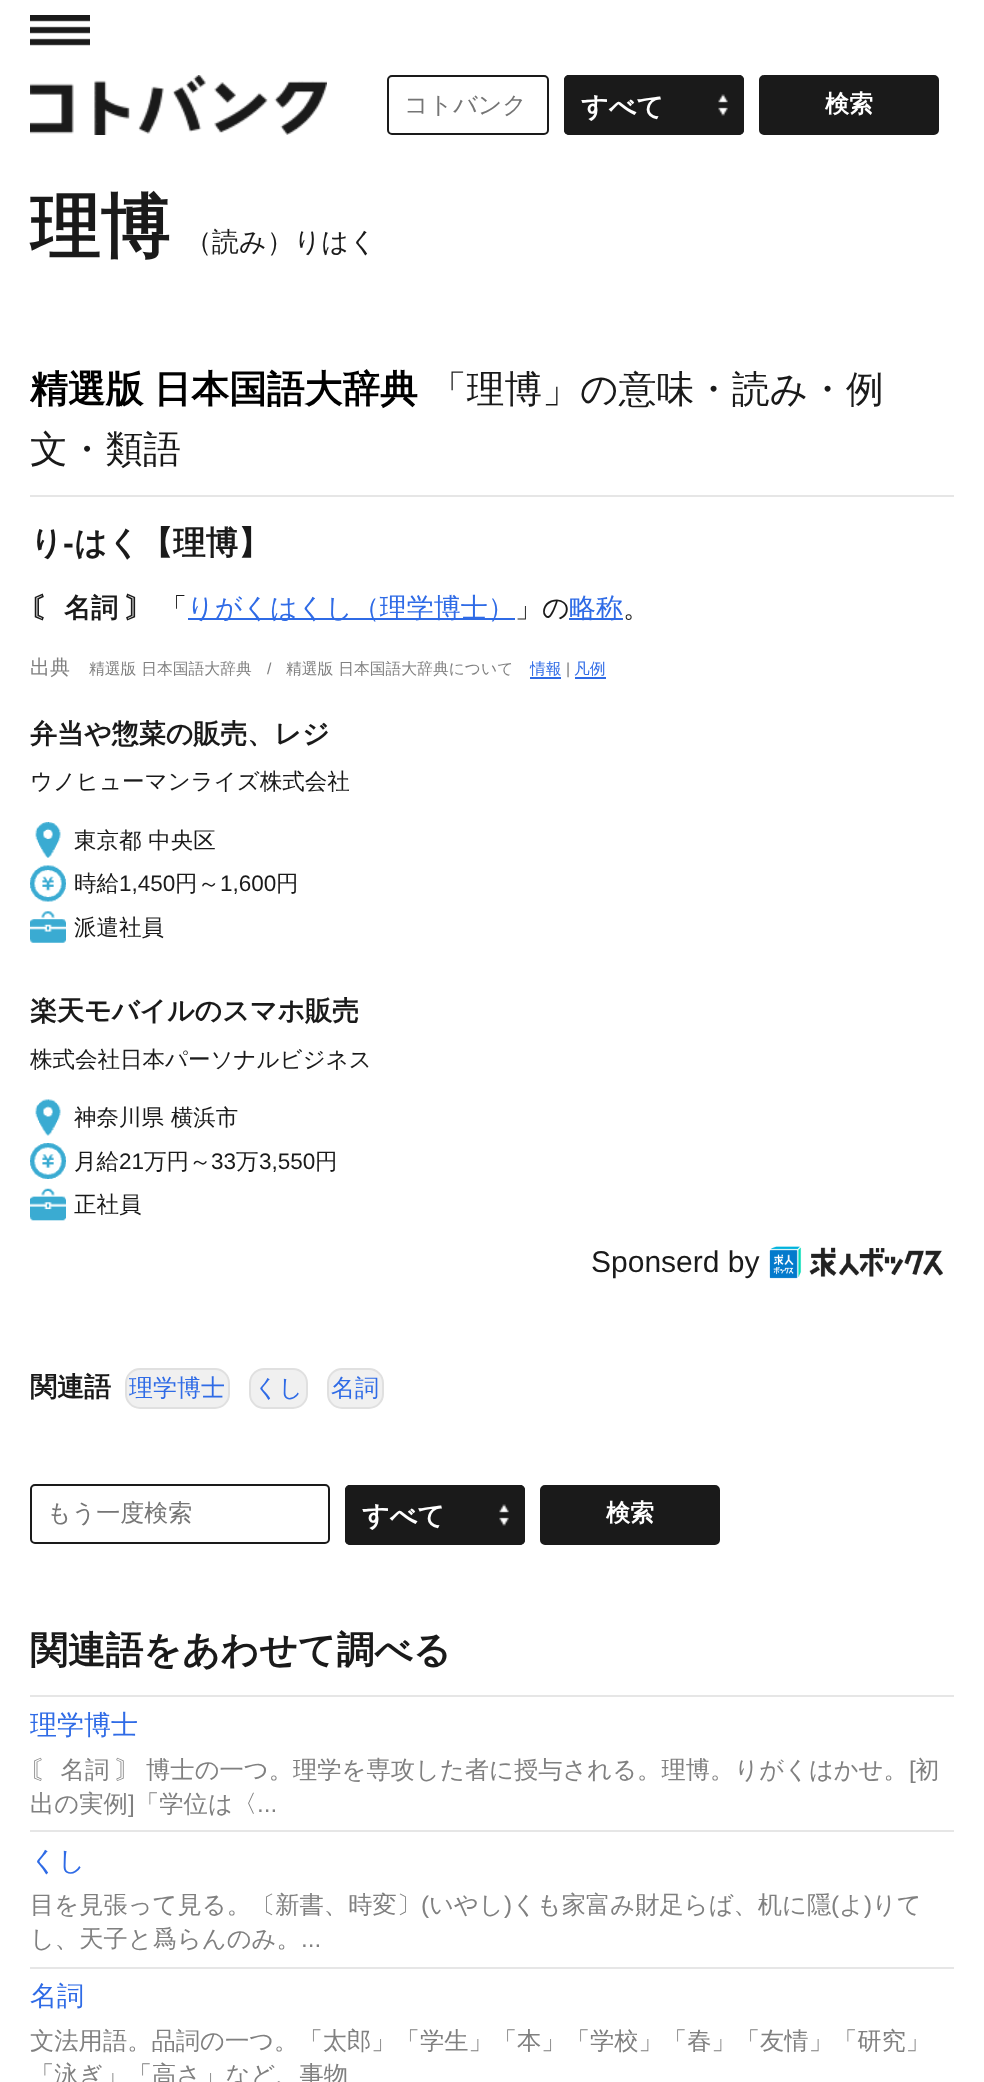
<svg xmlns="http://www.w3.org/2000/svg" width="984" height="2082">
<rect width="100%" height="100%" fill="#fff"/>
<image x="30" y="15" width="60" height="31" href="media/1.png"/>
<image x="30" y="75" width="297" height="60" href="media/2.png"/>
<rect x="388" y="76" width="160" height="58" rx="4" fill="none" stroke="#1a1a1a" stroke-width="2"/>
<text x="404" y="113" style="font-family:WenQuanYi Zen Hei;font-size:24px;font-weight:500;fill:#757575">コトバンク</text>
<rect x="564" y="75" width="180" height="60" rx="5" fill="#1a1a1a"/>
<image x="718" y="94" width="10" height="22" href="media/3.png"/>
<rect x="565" y="76" width="178" height="58" rx="4" fill="none" stroke="#1a1a1a" stroke-width="2"/>
<text x="581" y="116" style="font-family:WenQuanYi Zen Hei;font-size:27px;font-weight:bold;fill:#fff">すべて</text>
<rect x="760" y="76" width="178" height="58" rx="4" fill="#1a1a1a" stroke="#1a1a1a" stroke-width="2"/>
<text x="825" y="112" style="font-family:WenQuanYi Zen Hei;font-size:24px;font-weight:bold;fill:#fff">検索</text>
<text x="30" y="251" style="font-family:WenQuanYi Zen Hei;font-size:70px;font-weight:bold;fill:#1a1a1a">理博</text>
<text x="185" y="251" style="font-family:WenQuanYi Zen Hei;font-size:27px;font-weight:500;fill:#1a1a1a">（読み）りはく</text>
<rect x="30" y="495" width="924" height="2" fill="#e6e6e6"/>
<text x="30" y="402" word-spacing="-1" style="font-family:WenQuanYi Zen Hei;font-size:37.75px;font-weight:bold;fill:#000">精選版 日本国語大辞典</text>
<text x="429" y="402" style="font-family:WenQuanYi Zen Hei;font-size:37.75px;font-weight:500;fill:#1a1a1a">「理博」の意味・読み・例</text>
<text x="30" y="462" style="font-family:WenQuanYi Zen Hei;font-size:37.75px;font-weight:500;fill:#1a1a1a">文・類語</text>
<text x="30" y="554" style="font-family:WenQuanYi Zen Hei;font-size:32.5px;font-weight:bold;fill:#1a1a1a">り</text>
<text x="63" y="554" style="font-family:Liberation Sans;font-size:32.5px;font-weight:bold;fill:#1a1a1a">‐</text>
<text x="74" y="554" style="font-family:WenQuanYi Zen Hei;font-size:32.5px;font-weight:bold;fill:#1a1a1a">はく【理博】</text>
<text x="30" y="617" word-spacing="-1" style="font-family:WenQuanYi Zen Hei;font-size:27px;font-weight:bold;fill:#1a1a1a">〘 名詞 〙</text>
<text x="160" y="617" style="font-family:WenQuanYi Zen Hei;font-size:27px;font-weight:500;fill:#1a1a1a">「</text>
<rect x="188" y="618" width="327" height="2" fill="#2f6be6"/>
<text x="187" y="617" style="font-family:WenQuanYi Zen Hei;font-size:27px;font-weight:500;fill:#2f6be6">りがくはくし（理学博士）</text>
<text x="515" y="617" style="font-family:WenQuanYi Zen Hei;font-size:27px;font-weight:500;fill:#1a1a1a">」の</text>
<rect x="569" y="618" width="54" height="2" fill="#2f6be6"/>
<text x="569" y="617" style="font-family:WenQuanYi Zen Hei;font-size:27px;font-weight:500;fill:#2f6be6">略称</text>
<text x="623" y="617" style="font-family:WenQuanYi Zen Hei;font-size:27px;font-weight:500;fill:#1a1a1a">。</text>
<text x="30" y="674" style="font-family:WenQuanYi Zen Hei;font-size:20px;font-weight:500;fill:#808080">出典</text>
<text x="89" y="674" style="font-family:WenQuanYi Zen Hei;font-size:15.8px;font-weight:500;fill:#808080">精選版 日本国語大辞典</text>
<text x="267" y="674" style="font-family:Liberation Sans;font-size:15.8px;fill:#808080">/</text>
<text x="286" y="674" style="font-family:WenQuanYi Zen Hei;font-size:15.8px;font-weight:500;fill:#808080">精選版 日本国語大辞典について</text>
<text x="530" y="674" style="font-family:WenQuanYi Zen Hei;font-size:15.8px;font-weight:500;fill:#2f6be6">情報</text>
<rect x="530" y="677" width="31" height="2" fill="#2f6be6"/>
<text x="566" y="674" style="font-family:Liberation Sans;font-size:15.8px;fill:#808080">|</text>
<text x="574" y="674" style="font-family:WenQuanYi Zen Hei;font-size:15.8px;font-weight:500;fill:#2f6be6">凡例</text>
<rect x="575" y="677" width="31" height="2" fill="#2f6be6"/>
<text x="30" y="743" style="font-family:WenQuanYi Zen Hei;font-size:27px;font-weight:bold;fill:#1a1a1a">弁当や惣菜の販売、レジ</text>
<text x="30" y="789" style="font-family:WenQuanYi Zen Hei;font-size:22.5px;font-weight:500;fill:#1a1a1a">ウノヒューマンライズ株式会社</text>
<image x="35" y="822" width="26" height="36" href="media/4.png"/>
<text x="74" y="848" style="font-family:WenQuanYi Zen Hei;font-size:22.5px;font-weight:500;fill:#1a1a1a">東京都 中央区</text>
<image x="30" y="865" width="36" height="37" href="media/5.png"/>
<text x="74" y="891" style="font-family:WenQuanYi Zen Hei;font-size:22.5px;font-weight:500;fill:#1a1a1a">時給</text>
<text x="119" y="891" style="font-family:Liberation Sans;font-size:22.5px;fill:#1a1a1a">1,450</text>
<text x="175" y="891" style="font-family:WenQuanYi Zen Hei;font-size:22.5px;font-weight:500;fill:#1a1a1a">円～</text>
<text x="220" y="891" style="font-family:Liberation Sans;font-size:22.5px;fill:#1a1a1a">1,600</text>
<text x="276" y="891" style="font-family:WenQuanYi Zen Hei;font-size:22.5px;font-weight:500;fill:#1a1a1a">円</text>
<image x="30" y="911" width="36" height="32" href="media/6.png"/>
<text x="74" y="935" style="font-family:WenQuanYi Zen Hei;font-size:22.5px;font-weight:500;fill:#1a1a1a">派遣社員</text>
<text x="30" y="1020" style="font-family:WenQuanYi Zen Hei;font-size:27px;font-weight:bold;fill:#1a1a1a">楽天モバイルのスマホ販売</text>
<text x="30" y="1067" style="font-family:WenQuanYi Zen Hei;font-size:22.5px;font-weight:500;fill:#1a1a1a">株式会社日本パーソナルビジネス</text>
<image x="35" y="1099" width="26" height="37" href="media/7.png"/>
<text x="74" y="1125" style="font-family:WenQuanYi Zen Hei;font-size:22.5px;font-weight:500;fill:#1a1a1a">神奈川県 横浜市</text>
<image x="30" y="1143" width="36" height="36" href="media/8.png"/>
<text x="74" y="1169" style="font-family:WenQuanYi Zen Hei;font-size:22.5px;font-weight:500;fill:#1a1a1a">月給</text>
<text x="119" y="1169" style="font-family:Liberation Sans;font-size:22.5px;fill:#1a1a1a">21</text>
<text x="144" y="1169" style="font-family:WenQuanYi Zen Hei;font-size:22.5px;font-weight:500;fill:#1a1a1a">万円～</text>
<text x="211" y="1169" style="font-family:Liberation Sans;font-size:22.5px;fill:#1a1a1a">33</text>
<text x="236" y="1169" style="font-family:WenQuanYi Zen Hei;font-size:22.5px;font-weight:500;fill:#1a1a1a">万</text>
<text x="259" y="1169" style="font-family:Liberation Sans;font-size:22.5px;fill:#1a1a1a">3,550</text>
<text x="315" y="1169" style="font-family:WenQuanYi Zen Hei;font-size:22.5px;font-weight:500;fill:#1a1a1a">円</text>
<image x="30" y="1188" width="36" height="33" href="media/9.png"/>
<text x="74" y="1212" style="font-family:WenQuanYi Zen Hei;font-size:22.5px;font-weight:500;fill:#1a1a1a">正社員</text>
<text x="591" y="1272" style="font-family:Liberation Sans;font-size:30px;fill:#1a1a1a">Sponserd by</text>
<image x="769" y="1246" width="174" height="33" href="media/10.png"/>
<text x="30" y="1396" style="font-family:WenQuanYi Zen Hei;font-size:27px;font-weight:bold;fill:#1a1a1a">関連語</text>
<rect x="126" y="1369" width="103" height="39" rx="14" fill="#f0f0f0" stroke="#e0e0e0" stroke-width="2"/>
<text x="129" y="1396" style="font-family:WenQuanYi Zen Hei;font-size:24px;font-weight:500;fill:#2f6be6">理学博士</text>
<rect x="250" y="1369" width="57" height="39" rx="14" fill="#f0f0f0" stroke="#e0e0e0" stroke-width="2"/>
<text x="254" y="1396" style="font-family:WenQuanYi Zen Hei;font-size:24px;font-weight:500;fill:#2f6be6">くし</text>
<rect x="328" y="1369" width="55" height="39" rx="14" fill="#f0f0f0" stroke="#e0e0e0" stroke-width="2"/>
<text x="331" y="1396" style="font-family:WenQuanYi Zen Hei;font-size:24px;font-weight:500;fill:#2f6be6">名詞</text>
<rect x="31" y="1485" width="298" height="58" rx="4" fill="none" stroke="#1a1a1a" stroke-width="2"/>
<text x="47" y="1521" style="font-family:WenQuanYi Zen Hei;font-size:24px;font-weight:500;fill:#757575">もう一度検索</text>
<rect x="345" y="1485" width="180" height="60" rx="5" fill="#1a1a1a"/>
<image x="499" y="1504" width="10" height="22" href="media/3.png"/>
<rect x="346" y="1486" width="178" height="58" rx="4" fill="none" stroke="#1a1a1a" stroke-width="2"/>
<text x="362" y="1525" style="font-family:WenQuanYi Zen Hei;font-size:27px;font-weight:bold;fill:#fff">すべて</text>
<rect x="541" y="1486" width="178" height="58" rx="4" fill="#1a1a1a" stroke="#1a1a1a" stroke-width="2"/>
<text x="606" y="1521" style="font-family:WenQuanYi Zen Hei;font-size:24px;font-weight:bold;fill:#fff">検索</text>
<text x="30" y="1663" style="font-family:WenQuanYi Zen Hei;font-size:37.75px;font-weight:bold;fill:#1a1a1a">関連語をあわせて調べる</text>
<rect x="30" y="1695" width="924" height="2" fill="#e6e6e6"/>
<text x="30" y="1734" style="font-family:WenQuanYi Zen Hei;font-size:27px;font-weight:500;fill:#2f6be6">理学博士</text>
<text x="30" y="1778" word-spacing="-1" style="font-family:WenQuanYi Zen Hei;font-size:24.3px;font-weight:500;fill:#808080">〘 名詞 〙 博士の一つ。理学を専攻した者に授与される。理博。りがくはかせ。</text>
<text x="909" y="1778" style="font-family:Liberation Sans;font-size:24.3px;fill:#808080">[</text>
<text x="915" y="1778" style="font-family:WenQuanYi Zen Hei;font-size:24.3px;font-weight:500;fill:#808080">初</text>
<text x="30" y="1812" style="font-family:WenQuanYi Zen Hei;font-size:24.3px;font-weight:500;fill:#808080">出の実例</text>
<text x="128" y="1812" style="font-family:Liberation Sans;font-size:24.3px;fill:#808080">]</text>
<text x="135" y="1812" style="font-family:WenQuanYi Zen Hei;font-size:24.3px;font-weight:500;fill:#808080">「学位は〈</text>
<text x="257" y="1812" style="font-family:Liberation Sans;font-size:24.3px;fill:#808080">...</text>
<rect x="30" y="1830" width="924" height="2" fill="#e6e6e6"/>
<text x="30" y="1870" style="font-family:WenQuanYi Zen Hei;font-size:27px;font-weight:500;fill:#2f6be6">くし</text>
<text x="30" y="1913" style="font-family:WenQuanYi Zen Hei;font-size:24.3px;font-weight:500;fill:#808080">目を見張って見る。〔新書、時変〕</text>
<text x="421" y="1913" style="font-family:Liberation Sans;font-size:24.3px;fill:#808080">(</text>
<text x="429" y="1913" style="font-family:WenQuanYi Zen Hei;font-size:24.3px;font-weight:500;fill:#808080">いやし</text>
<text x="504" y="1913" style="font-family:Liberation Sans;font-size:24.3px;fill:#808080">)</text>
<text x="512" y="1913" style="font-family:WenQuanYi Zen Hei;font-size:24.3px;font-weight:500;fill:#808080">くも家富み財足らば、机に隱</text>
<text x="831" y="1913" style="font-family:Liberation Sans;font-size:24.3px;fill:#808080">(</text>
<text x="839" y="1913" style="font-family:WenQuanYi Zen Hei;font-size:24.3px;font-weight:500;fill:#808080">よ</text>
<text x="864" y="1913" style="font-family:Liberation Sans;font-size:24.3px;fill:#808080">)</text>
<text x="872" y="1913" style="font-family:WenQuanYi Zen Hei;font-size:24.3px;font-weight:500;fill:#808080">りて</text>
<text x="30" y="1947" style="font-family:WenQuanYi Zen Hei;font-size:24.3px;font-weight:500;fill:#808080">し、天子と爲らんのみ。</text>
<text x="301" y="1947" style="font-family:Liberation Sans;font-size:24.3px;fill:#808080">...</text>
<rect x="30" y="1967" width="924" height="2" fill="#e6e6e6"/>
<text x="30" y="2005" style="font-family:WenQuanYi Zen Hei;font-size:27px;font-weight:500;fill:#2f6be6">名詞</text>
<text x="30" y="2049" style="font-family:WenQuanYi Zen Hei;font-size:24.3px;font-weight:500;fill:#808080">文法用語。品詞の一つ。「太郎」「学生」「本」「学校」「春」「友情」「研究」</text>
<text x="30" y="2083" style="font-family:WenQuanYi Zen Hei;font-size:24.3px;font-weight:500;fill:#808080">「泳ぎ」「高さ」など、事物</text>
</svg>
